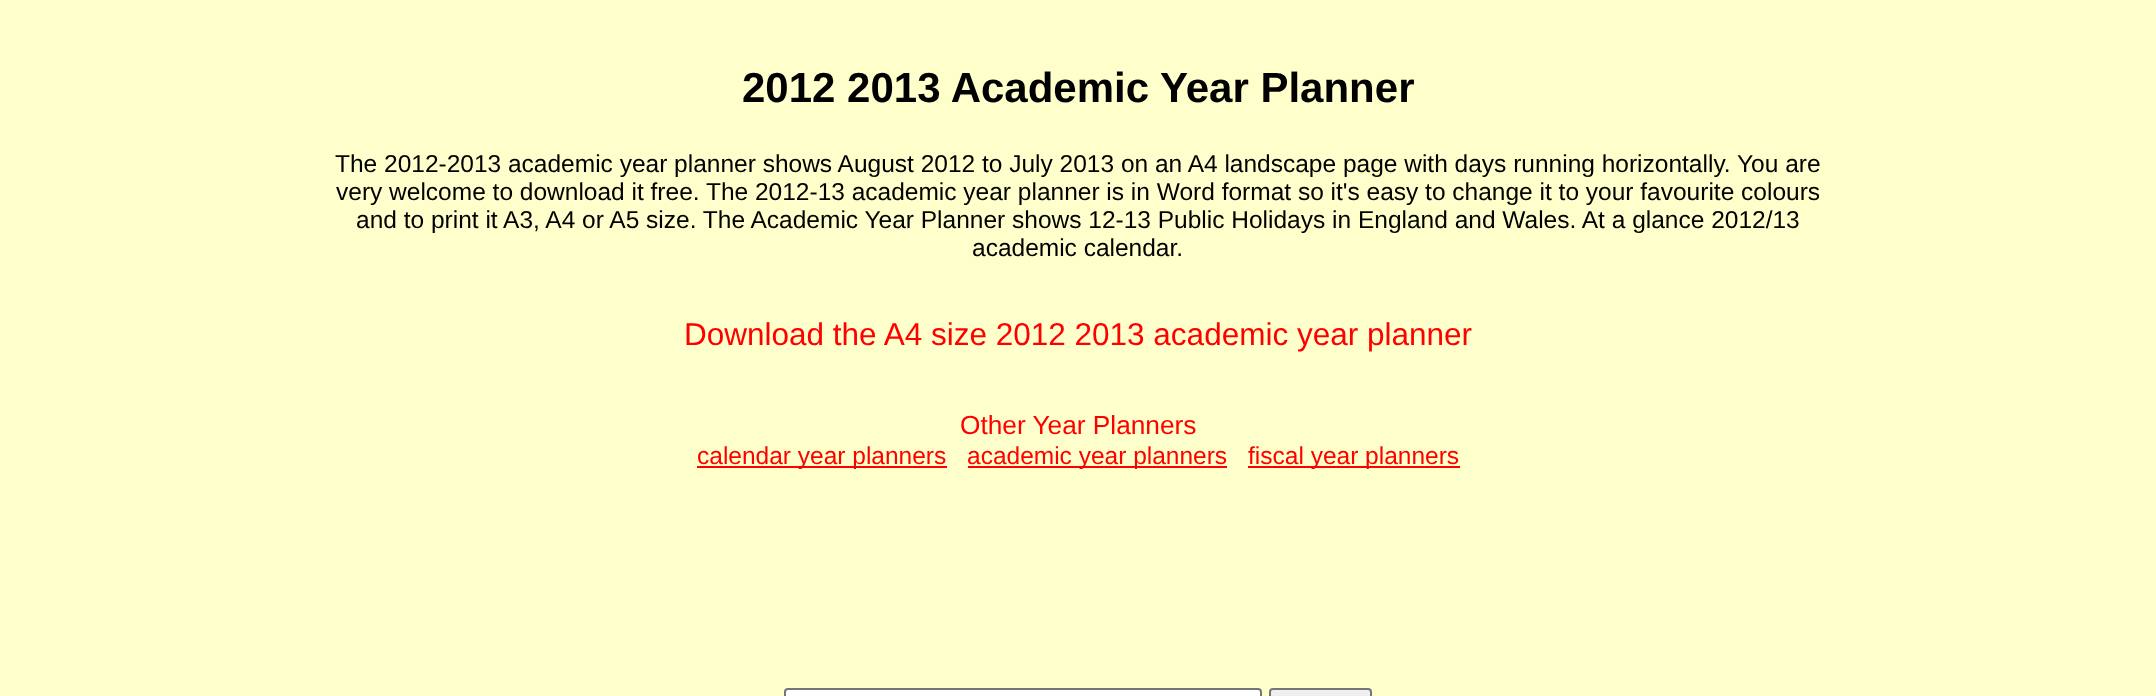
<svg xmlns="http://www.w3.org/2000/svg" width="2156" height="696">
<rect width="100%" height="100%" fill="#ffc"/>
<text x="742" y="102" style="font-family:Liberation Sans;font-size:42px;font-weight:bold;fill:#000">2012 2013 Academic Year Planner</text>
<text x="335" y="172" style="font-family:Liberation Sans;font-size:24.5px;fill:#000">The 2012-2013 academic year planner shows August 2012 to July 2013 on an A4 landscape page with days running horizontally. You are</text>
<text x="336" y="200" style="font-family:Liberation Sans;font-size:24.5px;fill:#000">very welcome to download it free. The 2012-13 academic year planner is in Word format so it's easy to change it to your favourite colours</text>
<text x="356" y="228" style="font-family:Liberation Sans;font-size:24.5px;fill:#000">and to print it A3, A4 or A5 size. The Academic Year Planner shows 12-13 Public Holidays in England and Wales. At a glance 2012/13</text>
<text x="972" y="256" style="font-family:Liberation Sans;font-size:24.5px;fill:#000">academic calendar.</text>
<text x="684" y="345" style="font-family:Liberation Sans;font-size:31.5px;fill:#f00">Download the A4 size 2012 2013 academic year planner</text>
<text x="960" y="434" style="font-family:Liberation Sans;font-size:26.25px;fill:#f00">Other Year Planners</text>
<rect x="697" y="466" width="250" height="2" fill="#f00"/>
<text x="697" y="464" style="font-family:Liberation Sans;font-size:24.5px;fill:#f00">calendar year planners</text>
<rect x="968" y="466" width="259" height="2" fill="#f00"/>
<text x="967" y="464" style="font-family:Liberation Sans;font-size:24.5px;fill:#f00">academic year planners</text>
<rect x="1248" y="466" width="212" height="2" fill="#f00"/>
<text x="1248" y="464" style="font-family:Liberation Sans;font-size:24.5px;fill:#f00">fiscal year planners</text>
<rect x="785" y="689" width="476" height="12" rx="3" fill="#fff" stroke="#767676" stroke-width="2"/>
<rect x="1270" y="689" width="101" height="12" rx="3" fill="#efefef" stroke="#767676" stroke-width="2"/>
</svg>
